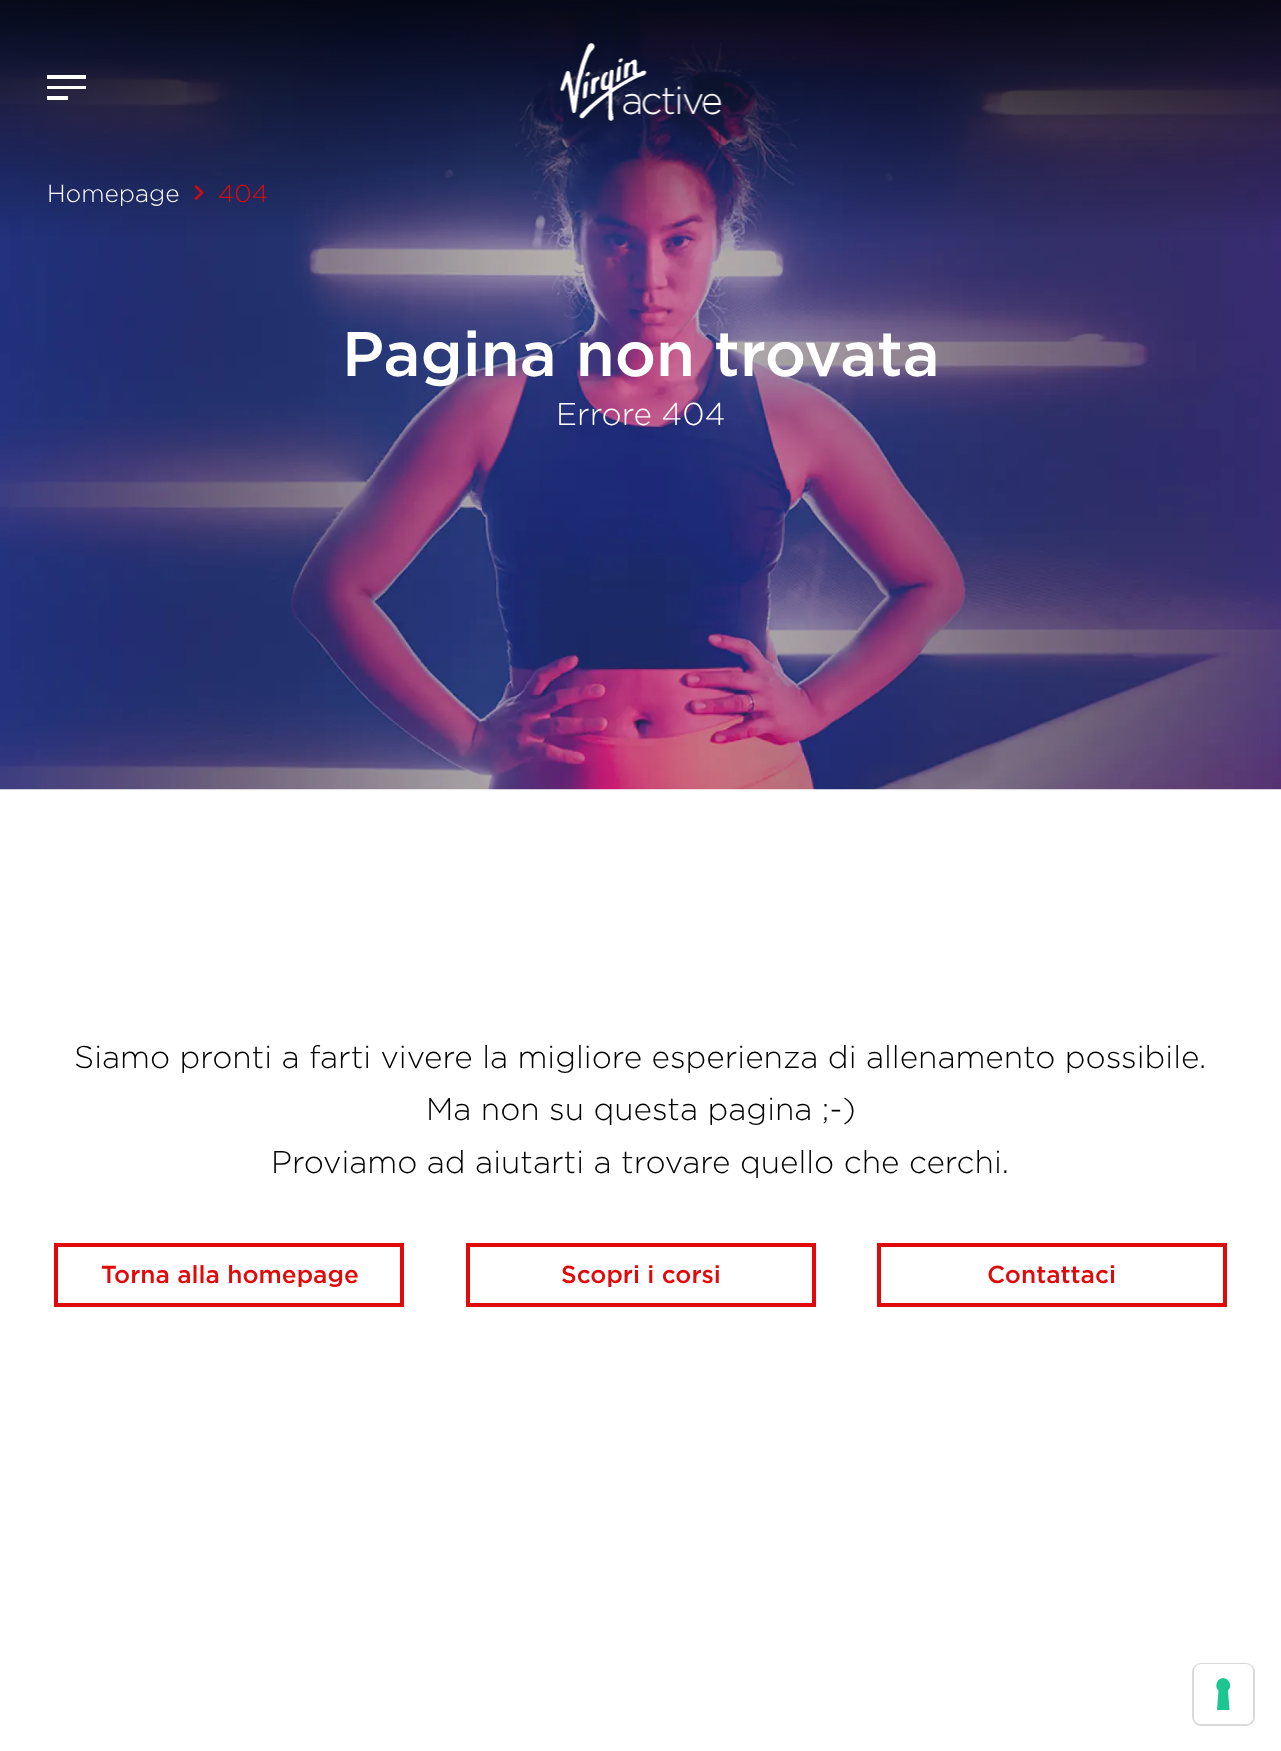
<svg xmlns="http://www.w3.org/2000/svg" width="1281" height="1751">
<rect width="100%" height="100%" fill="#fff"/>
<image x="0" y="0" width="1281" height="790" href="media/3.png"/>
<rect x="47" y="75" width="39" height="4" fill="#fff"/>
<rect x="47" y="86" width="39" height="3" fill="#fff"/>
<rect x="47" y="96" width="21" height="4" fill="#fff"/>
<image x="559" y="43" width="163" height="78" href="media/1.png"/>
<text x="47" y="202" style="font-family:Gotham;font-size:24.5px;font-weight:300;fill:#fff">Homepage</text>
<image x="194" y="185" width="10" height="16" href="media/2.png"/>
<text x="218" y="202" style="font-family:Gotham;font-size:24.5px;font-weight:300;fill:#e10a0a">404</text>
<text x="342" y="376" style="font-family:Gotham;font-size:63px;font-weight:500;fill:#fff">Pagina non trovata</text>
<text x="556" y="425" style="font-family:Gotham;font-size:31.5px;font-weight:300;fill:#fff">Errore 404</text>
<text x="74" y="1068" style="font-family:Gotham;font-size:31.5px;font-weight:300;fill:#000">Siamo pronti a farti vivere la migliore esperienza di allenamento possibile.</text>
<text x="426" y="1120" style="font-family:Gotham;font-size:31.5px;font-weight:300;fill:#000">Ma non su questa pagina ;-)</text>
<text x="271" y="1173" style="font-family:Gotham;font-size:31.5px;font-weight:300;fill:#000">Proviamo ad aiutarti a trovare quello che cerchi.</text>
<rect x="56" y="1245" width="346" height="60" fill="none" stroke="#e10a0a" stroke-width="4"/>
<text x="101" y="1283" style="font-family:Gotham;font-size:24.5px;font-weight:500;fill:#e10a0a">Torna alla homepage</text>
<rect x="468" y="1245" width="346" height="60" fill="none" stroke="#e10a0a" stroke-width="4"/>
<text x="561" y="1283" style="font-family:Gotham;font-size:24.5px;font-weight:500;fill:#e10a0a">Scopri i corsi</text>
<rect x="879" y="1245" width="346" height="60" fill="none" stroke="#e10a0a" stroke-width="4"/>
<text x="987" y="1283" style="font-family:Gotham;font-size:24.5px;font-weight:500;fill:#e10a0a">Contattaci</text>
<rect x="1193" y="1664" width="61" height="61" rx="8" fill="none" stroke="#d9d9d9" stroke-width="2"/>
<rect x="1194" y="1664" width="59" height="60" rx="7" fill="#fff"/>
<path d="M1223 1678c6.5 .5 9.5 8.5 5 12.5l1.5 19.5h-12.5l1.5-19.5c-4.5-4-1.5-12 4.5-12.5z" fill="#1cc691" fill-rule="evenodd"/>
</svg>
